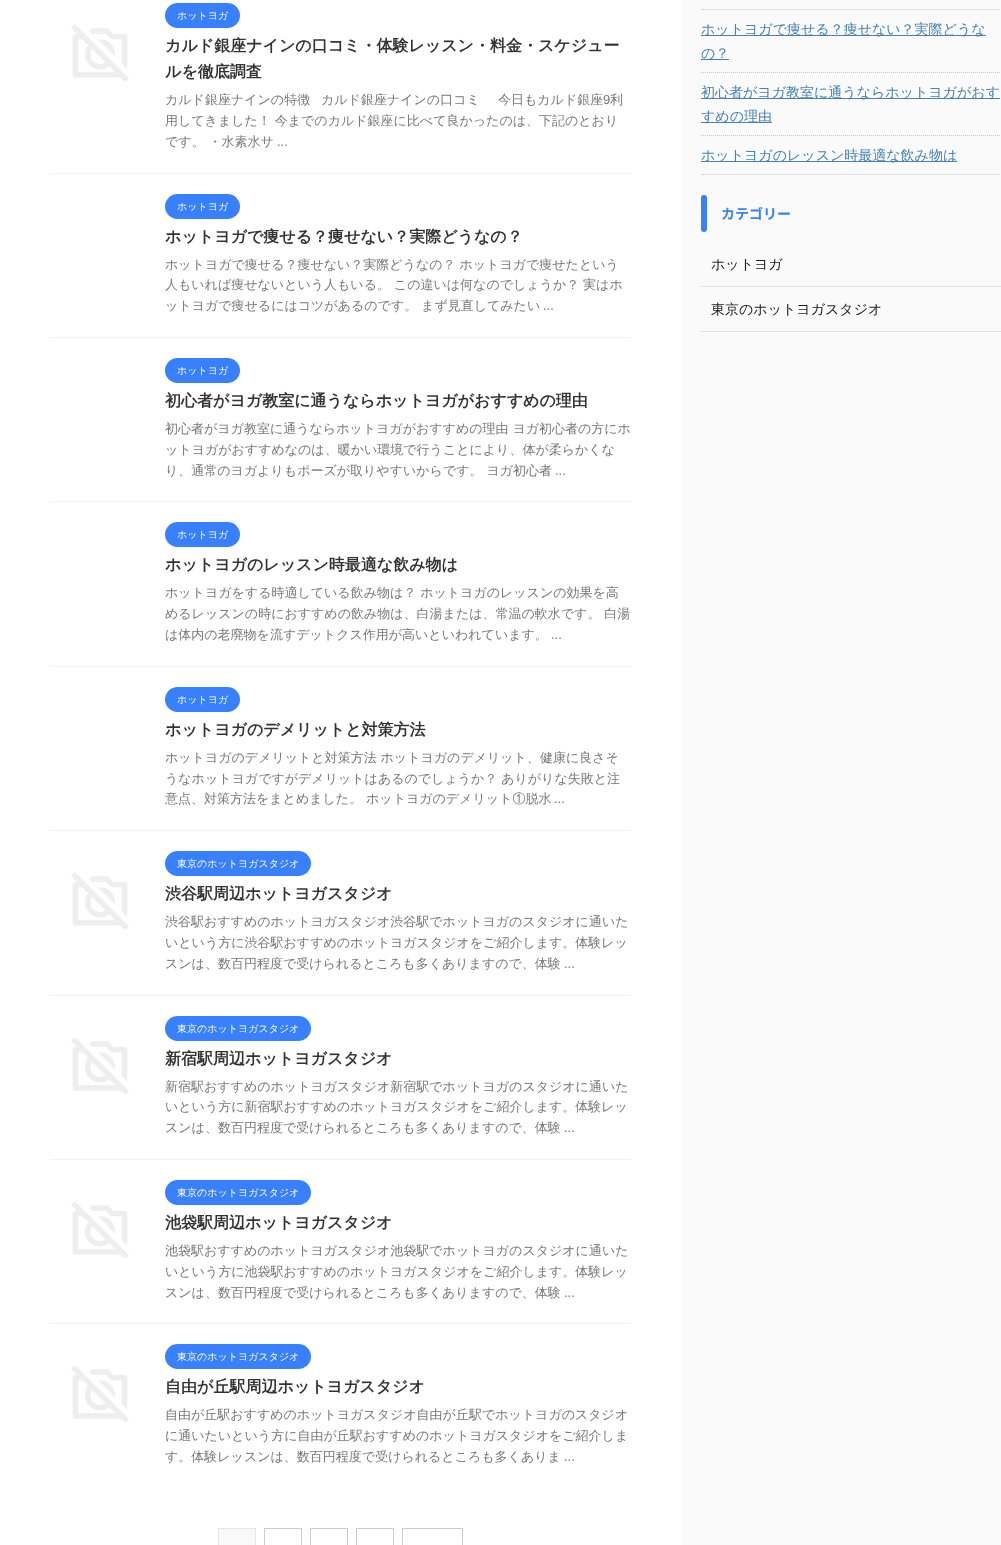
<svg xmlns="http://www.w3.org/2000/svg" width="1001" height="1545">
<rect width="100%" height="100%" fill="#fafafa"/>
<rect width="681" height="1545" fill="#fff"/>
<rect x="50" y="173" width="581" height="1" fill="#f3f3f3"/>
<image x="71" y="24" width="58" height="58" href="media/1.png"/>
<rect x="165" y="3" width="75" height="25" rx="12.5" fill="#3880ff"/>
<text x="177" y="19" style="font-family:WenQuanYi Zen Hei;font-size:10px;font-weight:500;fill:#fff">ホットヨガ</text>
<text x="165" y="51" style="font-family:WenQuanYi Zen Hei;font-size:16px;font-weight:bold;fill:#333">カルド銀座ナインの口コミ・体験レッスン・料金・スケジュー</text>
<text x="165" y="77" style="font-family:WenQuanYi Zen Hei;font-size:16px;font-weight:bold;fill:#333">ルを徹底調査</text>
<text x="165" y="104" style="font-family:WenQuanYi Zen Hei;font-size:13px;font-weight:500;fill:#777">カルド銀座ナインの特徴</text>
<text x="321" y="104" style="font-family:WenQuanYi Zen Hei;font-size:13px;font-weight:500;fill:#777">カルド銀座ナインの口コミ</text>
<text x="498" y="104" style="font-family:WenQuanYi Zen Hei;font-size:13px;font-weight:500;fill:#777">今日もカルド銀座</text>
<text x="603" y="104" style="font-family:Liberation Sans;font-size:13px;fill:#777">9</text>
<text x="610" y="104" style="font-family:WenQuanYi Zen Hei;font-size:13px;font-weight:500;fill:#777">利</text>
<text x="165" y="125" style="font-family:WenQuanYi Zen Hei;font-size:13px;font-weight:500;fill:#777">用してきました！ 今までのカルド銀座に比べて良かったのは、下記のとおり</text>
<text x="165" y="146" style="font-family:WenQuanYi Zen Hei;font-size:13px;font-weight:500;fill:#777">です。 ・水素水サ</text>
<text x="277" y="146" style="font-family:Liberation Sans;font-size:13px;fill:#777">...</text>
<rect x="50" y="337" width="581" height="1" fill="#f3f3f3"/>
<rect x="165" y="194" width="75" height="25" rx="12.5" fill="#3880ff"/>
<text x="177" y="210" style="font-family:WenQuanYi Zen Hei;font-size:10px;font-weight:500;fill:#fff">ホットヨガ</text>
<text x="165" y="242" style="font-family:WenQuanYi Zen Hei;font-size:16px;font-weight:bold;fill:#333">ホットヨガで痩せる？痩せない？実際どうなの？</text>
<text x="165" y="269" style="font-family:WenQuanYi Zen Hei;font-size:13px;font-weight:500;fill:#777">ホットヨガで痩せる？痩せない？実際どうなの？ ホットヨガで痩せたという</text>
<text x="165" y="289" style="font-family:WenQuanYi Zen Hei;font-size:13px;font-weight:500;fill:#777">人もいれば痩せないという人もいる。 この違いは何なのでしょうか？ 実はホ</text>
<text x="165" y="310" style="font-family:WenQuanYi Zen Hei;font-size:13px;font-weight:500;fill:#777">ットヨガで痩せるにはコツがあるのです。 まず見直してみたい</text>
<text x="543" y="310" style="font-family:Liberation Sans;font-size:13px;fill:#777">...</text>
<rect x="50" y="501" width="581" height="1" fill="#f3f3f3"/>
<rect x="165" y="358" width="75" height="25" rx="12.5" fill="#3880ff"/>
<text x="177" y="374" style="font-family:WenQuanYi Zen Hei;font-size:10px;font-weight:500;fill:#fff">ホットヨガ</text>
<text x="165" y="406" style="font-family:WenQuanYi Zen Hei;font-size:16px;font-weight:bold;fill:#333">初心者がヨガ教室に通うならホットヨガがおすすめの理由</text>
<text x="165" y="433" style="font-family:WenQuanYi Zen Hei;font-size:13px;font-weight:500;fill:#777">初心者がヨガ教室に通うならホットヨガがおすすめの理由 ヨガ初心者の方にホ</text>
<text x="165" y="454" style="font-family:WenQuanYi Zen Hei;font-size:13px;font-weight:500;fill:#777">ットヨガがおすすめなのは、暖かい環境で行うことにより、体が柔らかくな</text>
<text x="165" y="475" style="font-family:WenQuanYi Zen Hei;font-size:13px;font-weight:500;fill:#777">り、通常のヨガよりもポーズが取りやすいからです。 ヨガ初心者</text>
<text x="555" y="475" style="font-family:Liberation Sans;font-size:13px;fill:#777">...</text>
<rect x="50" y="666" width="581" height="1" fill="#f3f3f3"/>
<rect x="165" y="522" width="75" height="25" rx="12.5" fill="#3880ff"/>
<text x="177" y="538" style="font-family:WenQuanYi Zen Hei;font-size:10px;font-weight:500;fill:#fff">ホットヨガ</text>
<text x="165" y="570" style="font-family:WenQuanYi Zen Hei;font-size:16px;font-weight:bold;fill:#333">ホットヨガのレッスン時最適な飲み物は</text>
<text x="165" y="597" style="font-family:WenQuanYi Zen Hei;font-size:13px;font-weight:500;fill:#777">ホットヨガをする時適している飲み物は？ ホットヨガのレッスンの効果を高</text>
<text x="165" y="618" style="font-family:WenQuanYi Zen Hei;font-size:13px;font-weight:500;fill:#777">めるレッスンの時におすすめの飲み物は、白湯または、常温の軟水です。 白湯</text>
<text x="165" y="639" style="font-family:WenQuanYi Zen Hei;font-size:13px;font-weight:500;fill:#777">は体内の老廃物を流すデットクス作用が高いといわれています。</text>
<text x="551" y="639" style="font-family:Liberation Sans;font-size:13px;fill:#777">...</text>
<rect x="50" y="830" width="581" height="1" fill="#f3f3f3"/>
<rect x="165" y="687" width="75" height="25" rx="12.5" fill="#3880ff"/>
<text x="177" y="703" style="font-family:WenQuanYi Zen Hei;font-size:10px;font-weight:500;fill:#fff">ホットヨガ</text>
<text x="165" y="735" style="font-family:WenQuanYi Zen Hei;font-size:16px;font-weight:bold;fill:#333">ホットヨガのデメリットと対策方法</text>
<text x="165" y="762" style="font-family:WenQuanYi Zen Hei;font-size:13px;font-weight:500;fill:#777">ホットヨガのデメリットと対策方法 ホットヨガのデメリット、健康に良さそ</text>
<text x="165" y="783" style="font-family:WenQuanYi Zen Hei;font-size:13px;font-weight:500;fill:#777">うなホットヨガですがデメリットはあるのでしょうか？ ありがりな失敗と注</text>
<text x="165" y="803" style="font-family:WenQuanYi Zen Hei;font-size:13px;font-weight:500;fill:#777">意点、対策方法をまとめました。 ホットヨガのデメリット①脱水</text>
<text x="554" y="803" style="font-family:Liberation Sans;font-size:13px;fill:#777">...</text>
<rect x="50" y="995" width="581" height="1" fill="#f3f3f3"/>
<image x="71" y="872" width="58" height="58" href="media/1.png"/>
<rect x="165" y="851" width="146" height="25" rx="12.5" fill="#3880ff"/>
<text x="177" y="867" style="font-family:WenQuanYi Zen Hei;font-size:10px;font-weight:500;fill:#fff">東京のホットヨガスタジオ</text>
<text x="165" y="899" style="font-family:WenQuanYi Zen Hei;font-size:16px;font-weight:bold;fill:#333">渋谷駅周辺ホットヨガスタジオ</text>
<text x="165" y="926" style="font-family:WenQuanYi Zen Hei;font-size:13px;font-weight:500;fill:#777">渋谷駅おすすめのホットヨガスタジオ渋谷駅でホットヨガのスタジオに通いた</text>
<text x="165" y="947" style="font-family:WenQuanYi Zen Hei;font-size:13px;font-weight:500;fill:#777">いという方に渋谷駅おすすめのホットヨガスタジオをご紹介します。体験レッ</text>
<text x="165" y="968" style="font-family:WenQuanYi Zen Hei;font-size:13px;font-weight:500;fill:#777">スンは、数百円程度で受けられるところも多くありますので、体験</text>
<text x="564" y="968" style="font-family:Liberation Sans;font-size:13px;fill:#777">...</text>
<rect x="50" y="1159" width="581" height="1" fill="#f3f3f3"/>
<image x="71" y="1037" width="58" height="58" href="media/1.png"/>
<rect x="165" y="1016" width="146" height="25" rx="12.5" fill="#3880ff"/>
<text x="177" y="1032" style="font-family:WenQuanYi Zen Hei;font-size:10px;font-weight:500;fill:#fff">東京のホットヨガスタジオ</text>
<text x="165" y="1064" style="font-family:WenQuanYi Zen Hei;font-size:16px;font-weight:bold;fill:#333">新宿駅周辺ホットヨガスタジオ</text>
<text x="165" y="1091" style="font-family:WenQuanYi Zen Hei;font-size:13px;font-weight:500;fill:#777">新宿駅おすすめのホットヨガスタジオ新宿駅でホットヨガのスタジオに通いた</text>
<text x="165" y="1111" style="font-family:WenQuanYi Zen Hei;font-size:13px;font-weight:500;fill:#777">いという方に新宿駅おすすめのホットヨガスタジオをご紹介します。体験レッ</text>
<text x="165" y="1132" style="font-family:WenQuanYi Zen Hei;font-size:13px;font-weight:500;fill:#777">スンは、数百円程度で受けられるところも多くありますので、体験</text>
<text x="564" y="1132" style="font-family:Liberation Sans;font-size:13px;fill:#777">...</text>
<rect x="50" y="1323" width="581" height="1" fill="#f3f3f3"/>
<image x="71" y="1201" width="58" height="58" href="media/1.png"/>
<rect x="165" y="1180" width="146" height="25" rx="12.5" fill="#3880ff"/>
<text x="177" y="1196" style="font-family:WenQuanYi Zen Hei;font-size:10px;font-weight:500;fill:#fff">東京のホットヨガスタジオ</text>
<text x="165" y="1228" style="font-family:WenQuanYi Zen Hei;font-size:16px;font-weight:bold;fill:#333">池袋駅周辺ホットヨガスタジオ</text>
<text x="165" y="1255" style="font-family:WenQuanYi Zen Hei;font-size:13px;font-weight:500;fill:#777">池袋駅おすすめのホットヨガスタジオ池袋駅でホットヨガのスタジオに通いた</text>
<text x="165" y="1276" style="font-family:WenQuanYi Zen Hei;font-size:13px;font-weight:500;fill:#777">いという方に池袋駅おすすめのホットヨガスタジオをご紹介します。体験レッ</text>
<text x="165" y="1297" style="font-family:WenQuanYi Zen Hei;font-size:13px;font-weight:500;fill:#777">スンは、数百円程度で受けられるところも多くありますので、体験</text>
<text x="564" y="1297" style="font-family:Liberation Sans;font-size:13px;fill:#777">...</text>
<image x="71" y="1365" width="58" height="58" href="media/1.png"/>
<rect x="165" y="1344" width="146" height="25" rx="12.5" fill="#3880ff"/>
<text x="177" y="1360" style="font-family:WenQuanYi Zen Hei;font-size:10px;font-weight:500;fill:#fff">東京のホットヨガスタジオ</text>
<text x="165" y="1392" style="font-family:WenQuanYi Zen Hei;font-size:16px;font-weight:bold;fill:#333">自由が丘駅周辺ホットヨガスタジオ</text>
<text x="165" y="1419" style="font-family:WenQuanYi Zen Hei;font-size:13px;font-weight:500;fill:#777">自由が丘駅おすすめのホットヨガスタジオ自由が丘駅でホットヨガのスタジオ</text>
<text x="165" y="1440" style="font-family:WenQuanYi Zen Hei;font-size:13px;font-weight:500;fill:#777">に通いたいという方に自由が丘駅おすすめのホットヨガスタジオをご紹介しま</text>
<text x="165" y="1461" style="font-family:WenQuanYi Zen Hei;font-size:13px;font-weight:500;fill:#777">す。体験レッスンは、数百円程度で受けられるところも多くありま</text>
<text x="564" y="1461" style="font-family:Liberation Sans;font-size:13px;fill:#777">...</text>
<rect x="218.5" y="1528.5" width="37" height="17" fill="#f9f9f9" stroke="#e6e6e6"/>
<rect x="264.5" y="1528.5" width="37" height="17" fill="none" stroke="#ccc"/>
<rect x="310.5" y="1528.5" width="37" height="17" fill="none" stroke="#ccc"/>
<rect x="356.5" y="1528.5" width="37" height="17" fill="none" stroke="#ccc"/>
<rect x="402.5" y="1528.5" width="60" height="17" fill="none" stroke="#ccc"/>
<path d="M701 9.5h300" fill="none" stroke="#ccc" stroke-dasharray="1 1"/>
<path d="M701 72.5h300" fill="none" stroke="#ccc" stroke-dasharray="1 1"/>
<rect x="701" y="35" width="285" height="1" fill="#4682b4"/>
<text x="701" y="34" style="font-family:WenQuanYi Zen Hei;font-size:14px;font-weight:500;fill:#4682b4">ホットヨガで痩せる？痩せない？実際どうな</text>
<rect x="701" y="59" width="28" height="1" fill="#4682b4"/>
<text x="701" y="58" style="font-family:WenQuanYi Zen Hei;font-size:14px;font-weight:500;fill:#4682b4">の？</text>
<path d="M701 135.5h300" fill="none" stroke="#ccc" stroke-dasharray="1 1"/>
<rect x="701" y="98" width="299" height="1" fill="#4682b4"/>
<text x="701" y="97" style="font-family:WenQuanYi Zen Hei;font-size:14px;font-weight:500;fill:#4682b4">初心者がヨガ教室に通うならホットヨガがおす</text>
<rect x="701" y="122" width="71" height="1" fill="#4682b4"/>
<text x="701" y="121" style="font-family:WenQuanYi Zen Hei;font-size:14px;font-weight:500;fill:#4682b4">すめの理由</text>
<path d="M701 174.5h300" fill="none" stroke="#ccc" stroke-dasharray="1 1"/>
<rect x="701" y="161" width="256" height="1" fill="#4682b4"/>
<text x="701" y="160" style="font-family:WenQuanYi Zen Hei;font-size:14px;font-weight:500;fill:#4682b4">ホットヨガのレッスン時最適な飲み物は</text>
<rect x="701" y="195" width="6" height="37" rx="3" fill="#3880ff"/>
<text x="721" y="219" style="font-family:Noto Sans JP;font-size:14px;font-weight:bold;fill:#3880ff">カテゴリー</text>
<rect x="701" y="286" width="300" height="1" fill="#e1e1e1"/>
<text x="711" y="269" style="font-family:WenQuanYi Zen Hei;font-size:14px;font-weight:500;fill:#1a1a1a">ホットヨガ</text>
<rect x="701" y="331" width="300" height="1" fill="#e1e1e1"/>
<text x="711" y="314" style="font-family:WenQuanYi Zen Hei;font-size:14px;font-weight:500;fill:#1a1a1a">東京のホットヨガスタジオ</text>
</svg>
